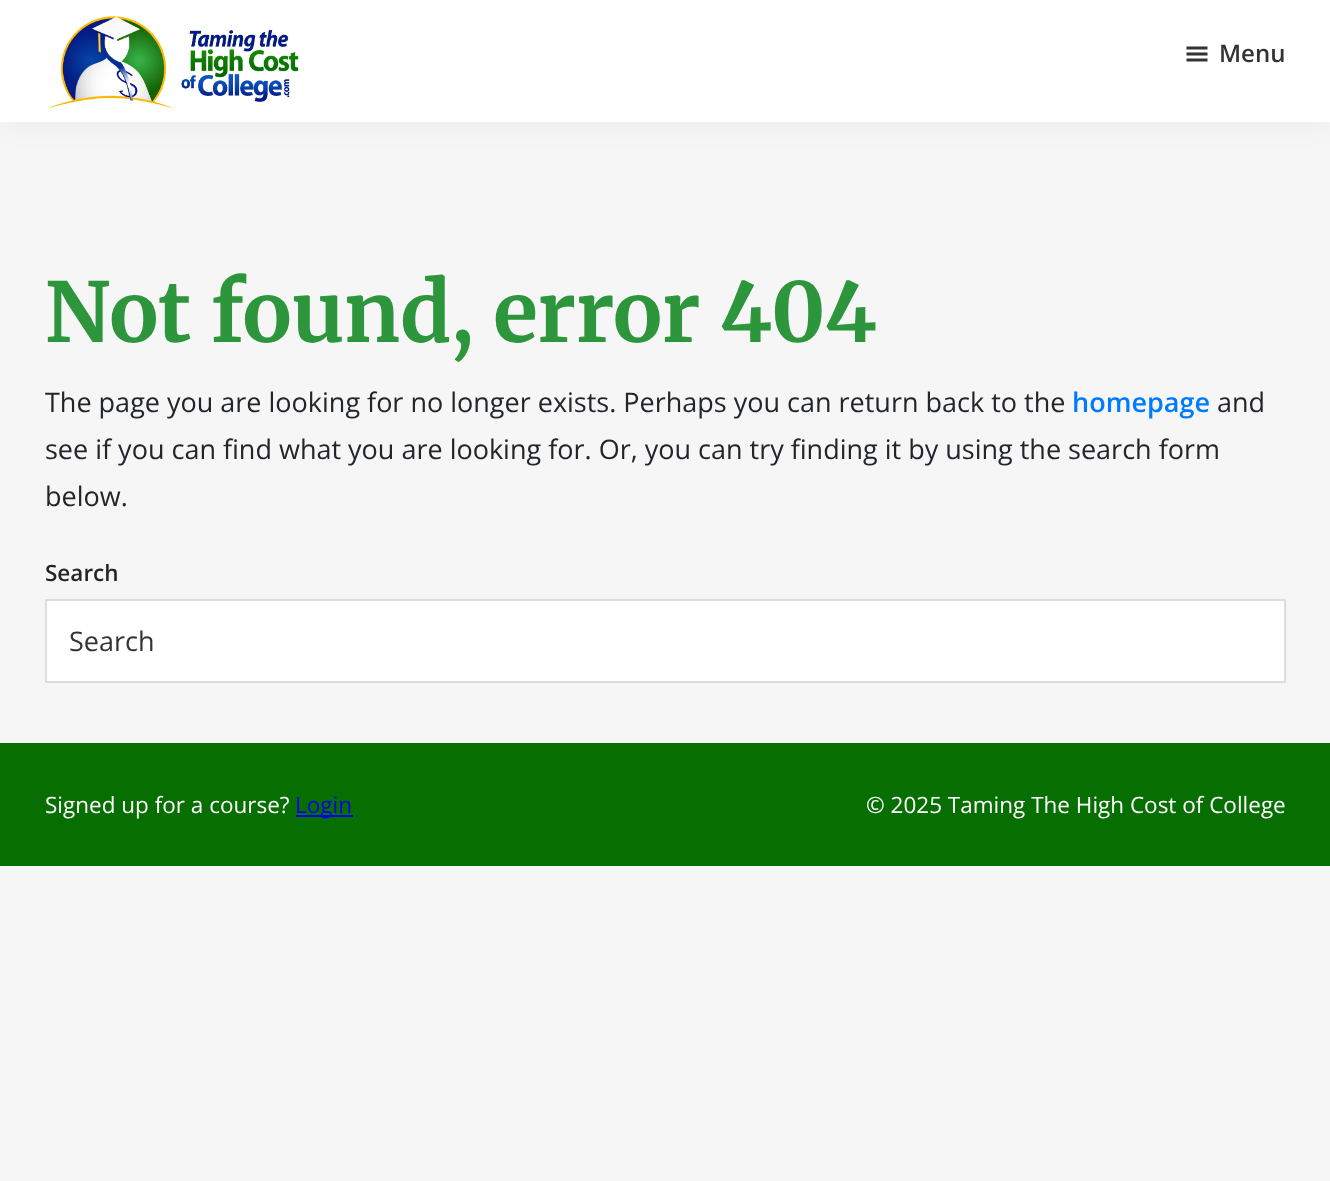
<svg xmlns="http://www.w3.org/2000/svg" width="1330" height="1181">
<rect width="100%" height="100%" fill="#f6f6f6"/>
<rect width="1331" height="122" fill="#0000000d" filter="blur(15px)"/>
<rect width="1330" height="122" fill="#fff"/>
<image x="47" y="16" width="252" height="93" href="media/1.png"/>
<image x="1186" y="46" width="22" height="16" href="media/2.png"/>
<text x="1219" y="62" style="font-family:Open Sans;font-size:24px;font-weight:600;fill:#333">Menu</text>
<text x="45" y="342" style="font-family:Merriweather;font-size:82.4px;font-weight:300;fill:#2d953b">Not found, error 404</text>
<text x="45" y="412" style="font-family:Open Sans;font-size:27px;fill:#22262a">The page you are looking for no longer exists. Perhaps you can return back to the</text>
<text x="1072" y="412" style="font-family:Open Sans;font-size:27px;font-weight:600;fill:#007bff">homepage</text>
<text x="1217" y="412" style="font-family:Open Sans;font-size:27px;fill:#22262a">and</text>
<text x="45" y="459" style="font-family:Open Sans;font-size:27px;fill:#22262a">see if you can find what you are looking for. Or, you can try finding it by using the search form</text>
<text x="45" y="506" style="font-family:Open Sans;font-size:27px;fill:#22262a">below.</text>
<text x="45" y="581" style="font-family:Open Sans;font-size:22.5px;font-weight:600;fill:#22262a">Search</text>
<rect x="46" y="600" width="1239" height="82" fill="#fff" stroke="#ddd" stroke-width="2"/>
<text x="69" y="651" style="font-family:Open Sans;font-size:27px;fill:#333">Search</text>
<rect y="743" width="1330" height="123" fill="#076e02"/>
<text x="45" y="813" style="font-family:Open Sans;font-size:22.5px;fill:#fff">Signed up for a course?</text>
<rect x="296" y="815" width="57" height="2" fill="#00e"/>
<text x="295" y="813" style="font-family:Open Sans;font-size:22.5px;fill:#00e">Login</text>
<text x="866" y="813" style="font-family:Open Sans;font-size:22.5px;fill:#fff">© 2025 Taming The High Cost of College</text>
</svg>
